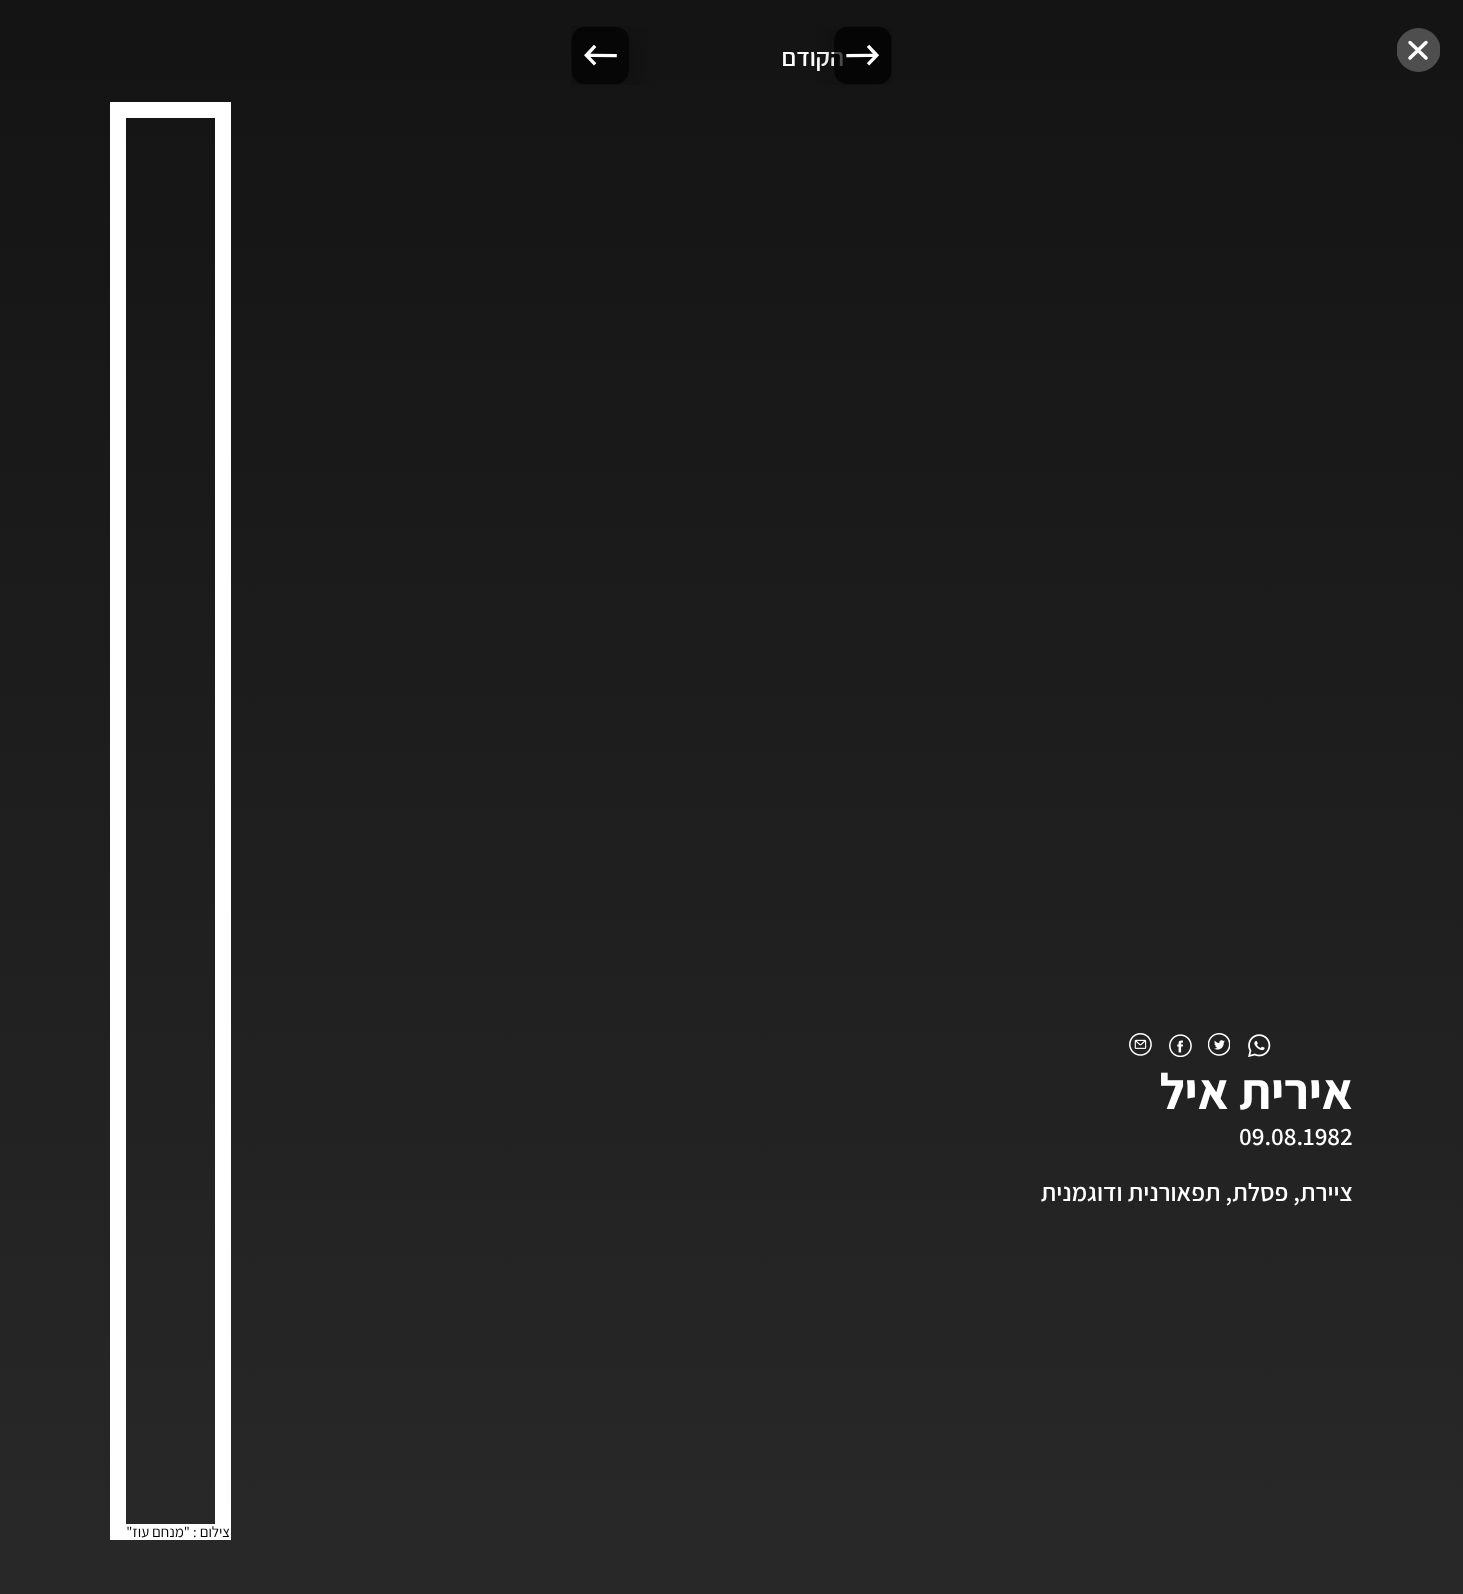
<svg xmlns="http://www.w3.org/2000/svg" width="1463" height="1594">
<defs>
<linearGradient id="g1" gradientUnits="userSpaceOnUse" x1="731" y1="0" x2="732" y2="1594"><stop offset="0.03" stop-color="#141414"/><stop offset="0.97" stop-color="#282828"/></linearGradient>
<clipPath id="clip1"><rect x="1397" y="28" width="43" height="44"/></clipPath>
</defs>
<rect width="100%" height="100%" fill="#fff"/>
<rect width="1463" height="1594" fill="url(#g1)"/>
<g clip-path="url(#clip1)">
<circle cx="1418.5" cy="50" r="22" fill="#4e4e4e"/>
</g>
<path d="M1410 42.5l16 15.5m0-15.5l-16 15.5" fill="none" stroke="#fff" stroke-width="3.5" stroke-linecap="round"/>
<text x="844" y="66" style="font-family:Assistant;font-size:25.1px;font-weight:600;direction:rtl;fill:#fff">הקודם</text>
<image x="817" y="26" width="75" height="59" href="media/1.png"/>
<image x="571" y="26" width="78" height="59" href="media/2.png"/>
<image x="1248" y="1034" width="23" height="23" href="media/3.png"/>
<image x="1208" y="1033" width="22" height="23" href="media/4.png"/>
<image x="1169" y="1034" width="23" height="23" href="media/5.png"/>
<image x="1129" y="1033" width="23" height="23" href="media/6.png"/>
<text x="1353" y="1109" style="font-family:Assistant;font-size:50.5px;font-weight:bold;direction:rtl;fill:#fff">אירית איל</text>
<text x="1239" y="1145" style="font-family:Assistant;font-size:25.1px;font-weight:600;fill:#fff">09.08.1982</text>
<text x="1353" y="1201" style="font-family:Assistant;font-size:25.1px;font-weight:600;direction:rtl;fill:#fff">ציירת, פסלת, תפאורנית ודוגמנית</text>
<rect x="118" y="110" width="105" height="1422" fill="none" stroke="#fff" stroke-width="16"/>
<text x="230" y="1537" style="font-family:Assistant;font-size:15px;direction:rtl;fill:#000">צילום</text>
<text x="193" y="1537" style="font-family:Assistant;font-size:15px;fill:#000">:</text>
<text x="190" y="1537" style="font-family:Assistant;font-size:15px;direction:rtl;fill:#000">"מנחם עוז"</text>
</svg>
